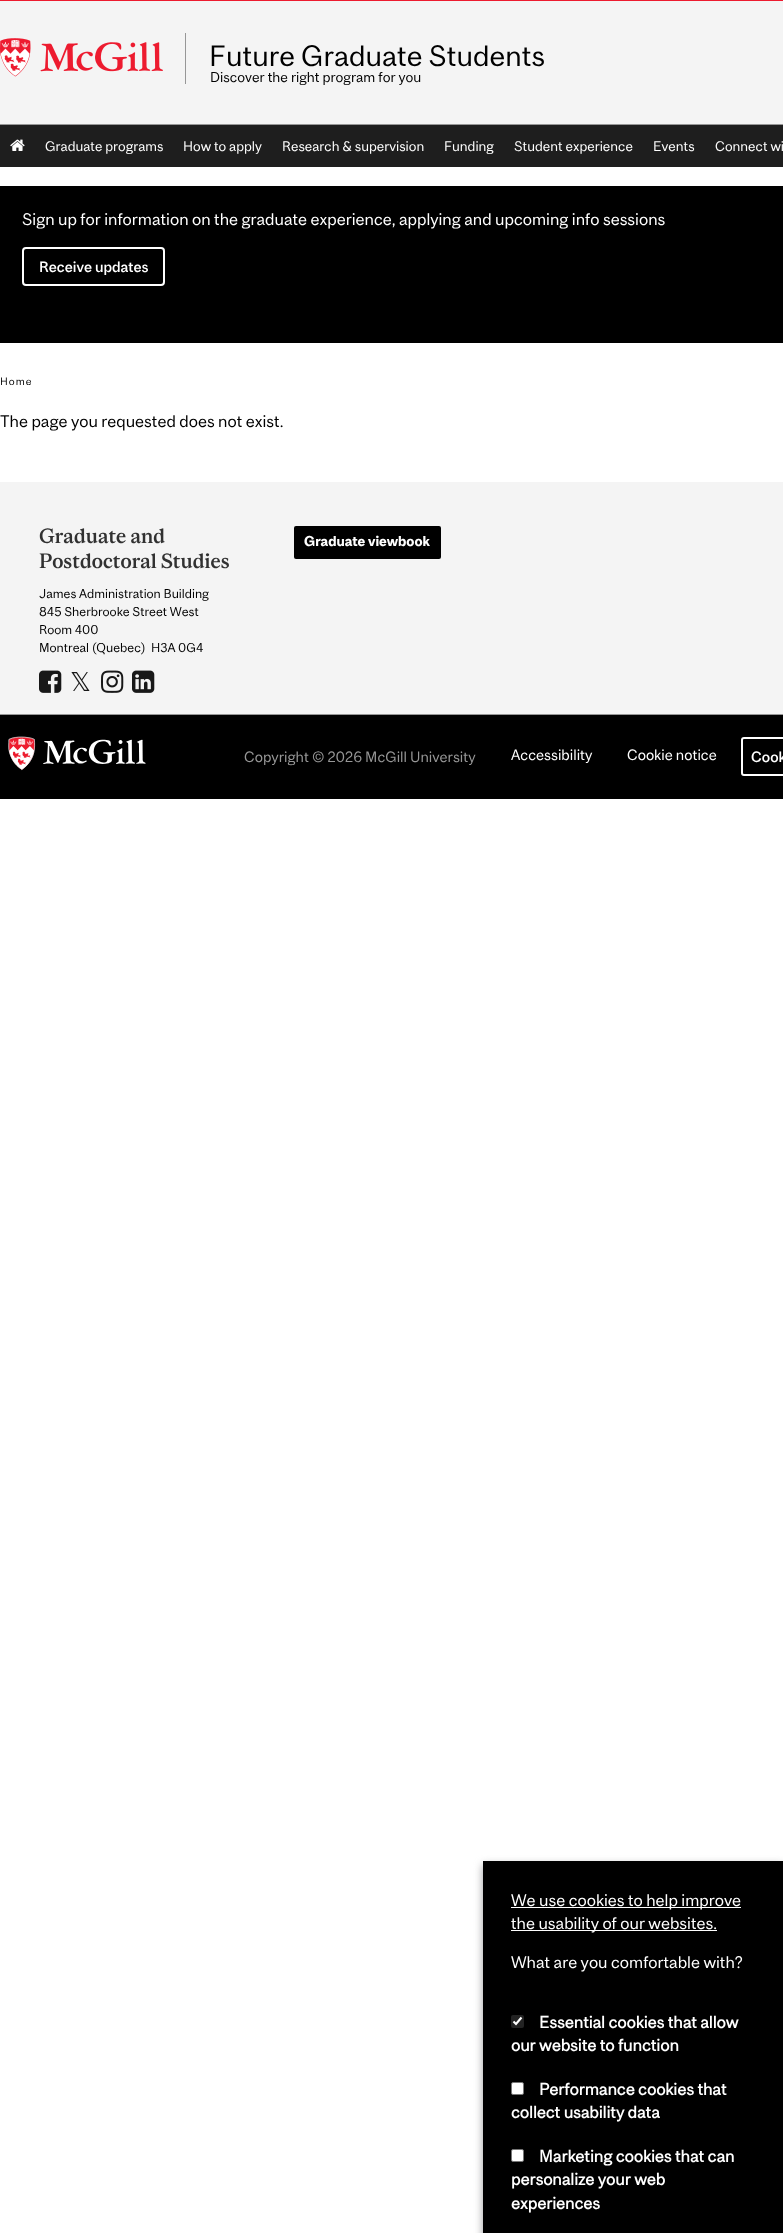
<svg xmlns="http://www.w3.org/2000/svg" width="783" height="2233">
<style>*{font-kerning:none!important;font-variant-ligatures:none!important}</style>
<rect width="100%" height="100%" fill="#fff"/>
<rect y="1" width="783" height="123" fill="#f4f4f4"/>
<rect width="783" height="1" fill="#ed1b2f"/>
<rect y="124" width="783" height="1" fill="#979797"/>
<image x="0" y="38" width="163" height="39" href="media/1.png"/>
<rect x="185" y="33" width="1" height="51" fill="#979797"/>
<text x="209" y="66" style="font-family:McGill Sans;font-size:27.5px;fill:#000">Future Graduate Students</text>
<text x="210" y="82" style="font-family:McGill Sans;font-size:13.3px;fill:#000">Discover the right program for you</text>
<rect y="125" width="783" height="42" fill="#1e1e1e"/>
<image x="10" y="139" width="15" height="12" href="media/2.png"/>
<text x="45" y="151" style="font-family:McGill Sans;font-size:13px;fill:#fff">Graduate programs</text>
<text x="183" y="151" style="font-family:McGill Sans;font-size:13px;fill:#fff">How to apply</text>
<text x="282" y="151" style="font-family:McGill Sans;font-size:13px;fill:#fff">Research &amp; supervision</text>
<text x="444" y="151" style="font-family:McGill Sans;font-size:13px;fill:#fff">Funding</text>
<text x="514" y="151" style="font-family:McGill Sans;font-size:13px;fill:#fff">Student experience</text>
<text x="653" y="151" style="font-family:McGill Sans;font-size:13px;fill:#fff">Events</text>
<text x="715" y="151" style="font-family:McGill Sans;font-size:13px;fill:#fff">Connect wi</text>
<rect y="186" width="783" height="157" fill="#000"/>
<text x="22" y="225" style="font-family:McGill Sans;font-size:15.7px;fill:#fff">Sign up for information on the graduate experience, applying and upcoming info sessions</text>
<rect x="23" y="248" width="141" height="37" rx="3" fill="none" stroke="#fff" stroke-width="2"/>
<text x="39" y="272" style="font-family:McGill Sans;font-size:14px;font-weight:500;fill:#fff">Receive updates</text>
<text x="0" y="385" style="font-family:McGill Sans;font-size:10px;letter-spacing:1px;fill:#000">Home</text>
<text x="0" y="427" style="font-family:McGill Sans;font-size:15.7px;fill:#000">The page you requested does not exist.</text>
<rect y="482" width="783" height="232" fill="#f4f4f4"/>
<text x="39" y="543" style="font-family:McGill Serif;font-size:19.25px;font-weight:500;fill:#313131">Graduate and</text>
<text x="39" y="568" style="font-family:McGill Serif;font-size:19.25px;font-weight:500;fill:#313131">Postdoctoral Studies</text>
<text x="39" y="598" style="font-family:McGill Sans;font-size:12px;fill:#000">James Administration Building</text>
<text x="39" y="616" style="font-family:McGill Sans;font-size:12px;fill:#000">845 Sherbrooke Street West</text>
<text x="39" y="634" style="font-family:McGill Sans;font-size:12px;fill:#000">Room 400</text>
<text x="39" y="652" style="font-family:McGill Sans;font-size:12px;fill:#000" xml:space="preserve">Montreal (Quebec)  H3A 0G4</text>
<rect x="294" y="526" width="147" height="33" rx="2" fill="#000"/>
<text x="304" y="546" style="font-family:McGill Sans;font-size:13.3px;font-weight:bold;fill:#fff">Graduate viewbook</text>
<image x="39" y="670" width="23" height="23" href="media/3.png"/>
<text x="70" y="691" style="font-family:DejaVu Sans;font-size:26px;fill:#181818">𝕏</text>
<image x="101" y="670" width="23" height="23" href="media/4.png"/>
<image x="132" y="670" width="23" height="23" href="media/5.png"/>
<rect y="715" width="783" height="84" fill="#000"/>
<rect y="714" width="783" height="1" fill="#979797"/>
<image x="8" y="736" width="138" height="35" href="media/6.png"/>
<text x="244" y="762" style="font-family:McGill Sans;font-size:14px;fill:#979797">Copyright © 2026 McGill University</text>
<text x="511" y="760" style="font-family:McGill Sans;font-size:14px;fill:#fff">Accessibility</text>
<text x="627" y="760" style="font-family:McGill Sans;font-size:14px;fill:#fff">Cookie notice</text>
<rect x="742" y="738" width="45" height="37" rx="2" fill="none" stroke="#fff" stroke-width="2"/>
<text x="751" y="762" style="font-family:McGill Sans;font-size:14px;font-weight:500;fill:#fff">Cook</text>
<rect x="483" y="1865" width="300" height="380" fill="#979799" filter="blur(4px)"/>
<rect x="483" y="1861" width="300" height="372" fill="#000"/>
<rect x="511" y="1907" width="230" height="1" fill="#fff"/>
<text x="511" y="1906" style="font-family:McGill Sans;font-size:15.7px;fill:#fff">We use cookies to help improve</text>
<rect x="511" y="1930" width="206" height="1" fill="#fff"/>
<text x="511" y="1929" style="font-family:McGill Sans;font-size:15.7px;fill:#fff">the usability of our websites.</text>
<text x="511" y="1968" style="font-family:McGill Sans;font-size:15.7px;fill:#fff">What are you comfortable with?</text>
<rect x="511" y="2015" width="13" height="13" rx="2" fill="#232323"/>
<path d="M513.5 2021.5l2.5 2.5l5.5-6.5" fill="none" stroke="#fff" stroke-width="2.1"/>
<text x="539" y="2028" style="font-family:'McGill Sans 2';font-size:15.7px;font-weight:bold;fill:#fff">Essential cookies that allow</text>
<text x="511" y="2051" style="font-family:'McGill Sans 2';font-size:15.7px;font-weight:bold;fill:#fff">our website to function</text>
<rect x="511.5" y="2082.5" width="12" height="12" rx="1.5" fill="#fff" stroke="#767676"/>
<text x="539" y="2095" style="font-family:'McGill Sans 2';font-size:15.7px;font-weight:bold;fill:#fff">Performance cookies that</text>
<text x="511" y="2118" style="font-family:'McGill Sans 2';font-size:15.7px;font-weight:bold;fill:#fff">collect usability data</text>
<rect x="511.5" y="2149.5" width="12" height="12" rx="1.5" fill="#fff" stroke="#767676"/>
<text x="539" y="2162" style="font-family:'McGill Sans 2';font-size:15.7px;font-weight:bold;fill:#fff">Marketing cookies that can</text>
<text x="511" y="2185" style="font-family:'McGill Sans 2';font-size:15.7px;font-weight:bold;fill:#fff">personalize your web</text>
<text x="511" y="2209" style="font-family:'McGill Sans 2';font-size:15.7px;font-weight:bold;fill:#fff">experiences</text>
</svg>
